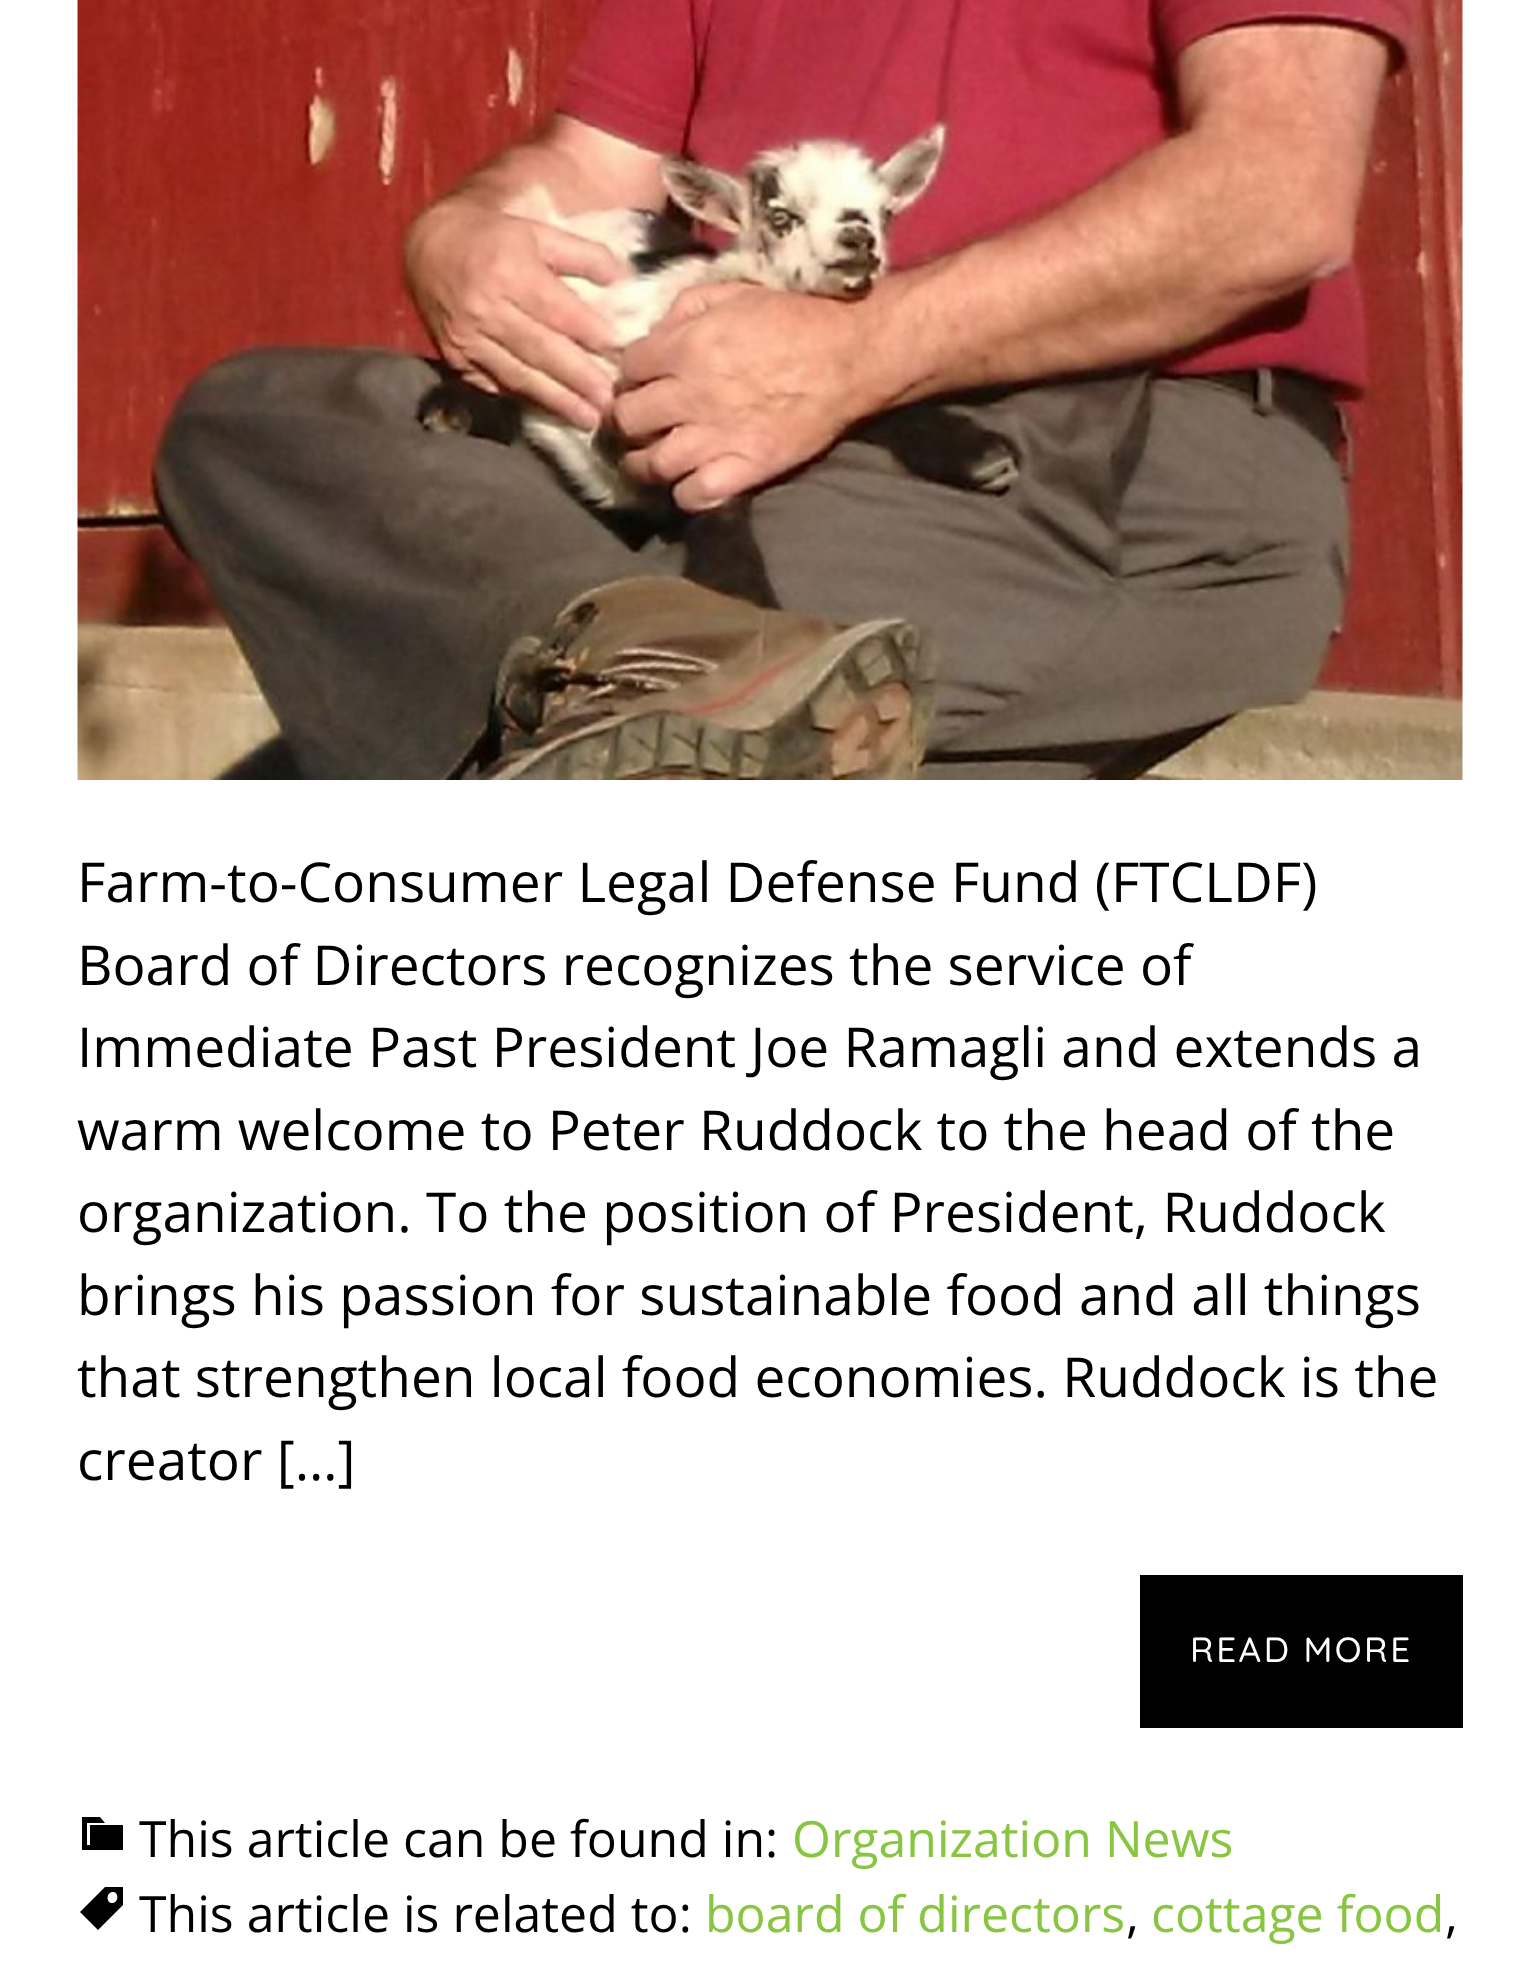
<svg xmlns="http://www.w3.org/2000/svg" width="1538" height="1962">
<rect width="100%" height="100%" fill="#fff"/>
<image x="77" y="0" width="1386" height="780" href="media/1.png"/>
<text x="77" y="902" style="font-family:Open Sans;font-size:55px;fill:#000">Farm-to-Consumer Legal Defense Fund (FTCLDF)</text>
<text x="77" y="985" style="font-family:Open Sans;font-size:55px;fill:#000">Board of Directors recognizes the service of</text>
<text x="77" y="1067" style="font-family:Open Sans;font-size:55px;fill:#000">Immediate Past President Joe Ramagli and extends a</text>
<text x="77" y="1150" style="font-family:Open Sans;font-size:55px;fill:#000">warm welcome to Peter Ruddock to the head of the</text>
<text x="77" y="1232" style="font-family:Open Sans;font-size:55px;fill:#000">organization. To the position of President, Ruddock</text>
<text x="77" y="1315" style="font-family:Open Sans;font-size:55px;fill:#000">brings his passion for sustainable food and all things</text>
<text x="77" y="1397" style="font-family:Open Sans;font-size:55px;fill:#000">that strengthen local food economies. Ruddock is the</text>
<text x="77" y="1480" style="font-family:Open Sans;font-size:55px;fill:#000">creator […]</text>
<rect x="1140" y="1575" width="323" height="153" fill="#000"/>
<text x="1190" y="1662" style="font-family:Quicksand;font-size:35px;font-weight:500;letter-spacing:2.5px;fill:#fff">READ MORE</text>
<path d="M90 1825h33v25h-41v-33h18l5 6h-18v22h3z" fill="#000"/>
<text x="139" y="1857" style="font-family:Open Sans;font-size:50px;fill:#000">This article can be found in:</text>
<text x="792" y="1857" style="font-family:Open Sans;font-size:50px;fill:#88c540">Organization News</text>
<path d="M105 1887h18v18l-25 25l-18-18zm7 16c7 0 7-11 1-11c-7 0-7 11-1 11z" fill="#000"/>
<text x="139" y="1932" style="font-family:Open Sans;font-size:50px;fill:#000">This article is related to:</text>
<text x="705" y="1932" style="font-family:Open Sans;font-size:50px;fill:#88c540">board of directors</text>
<text x="1126" y="1932" style="font-family:Open Sans;font-size:50px;fill:#000">,</text>
<text x="1151" y="1932" style="font-family:Open Sans;font-size:50px;fill:#88c540">cottage food</text>
<text x="1445" y="1932" style="font-family:Open Sans;font-size:50px;fill:#000">,</text>
</svg>
